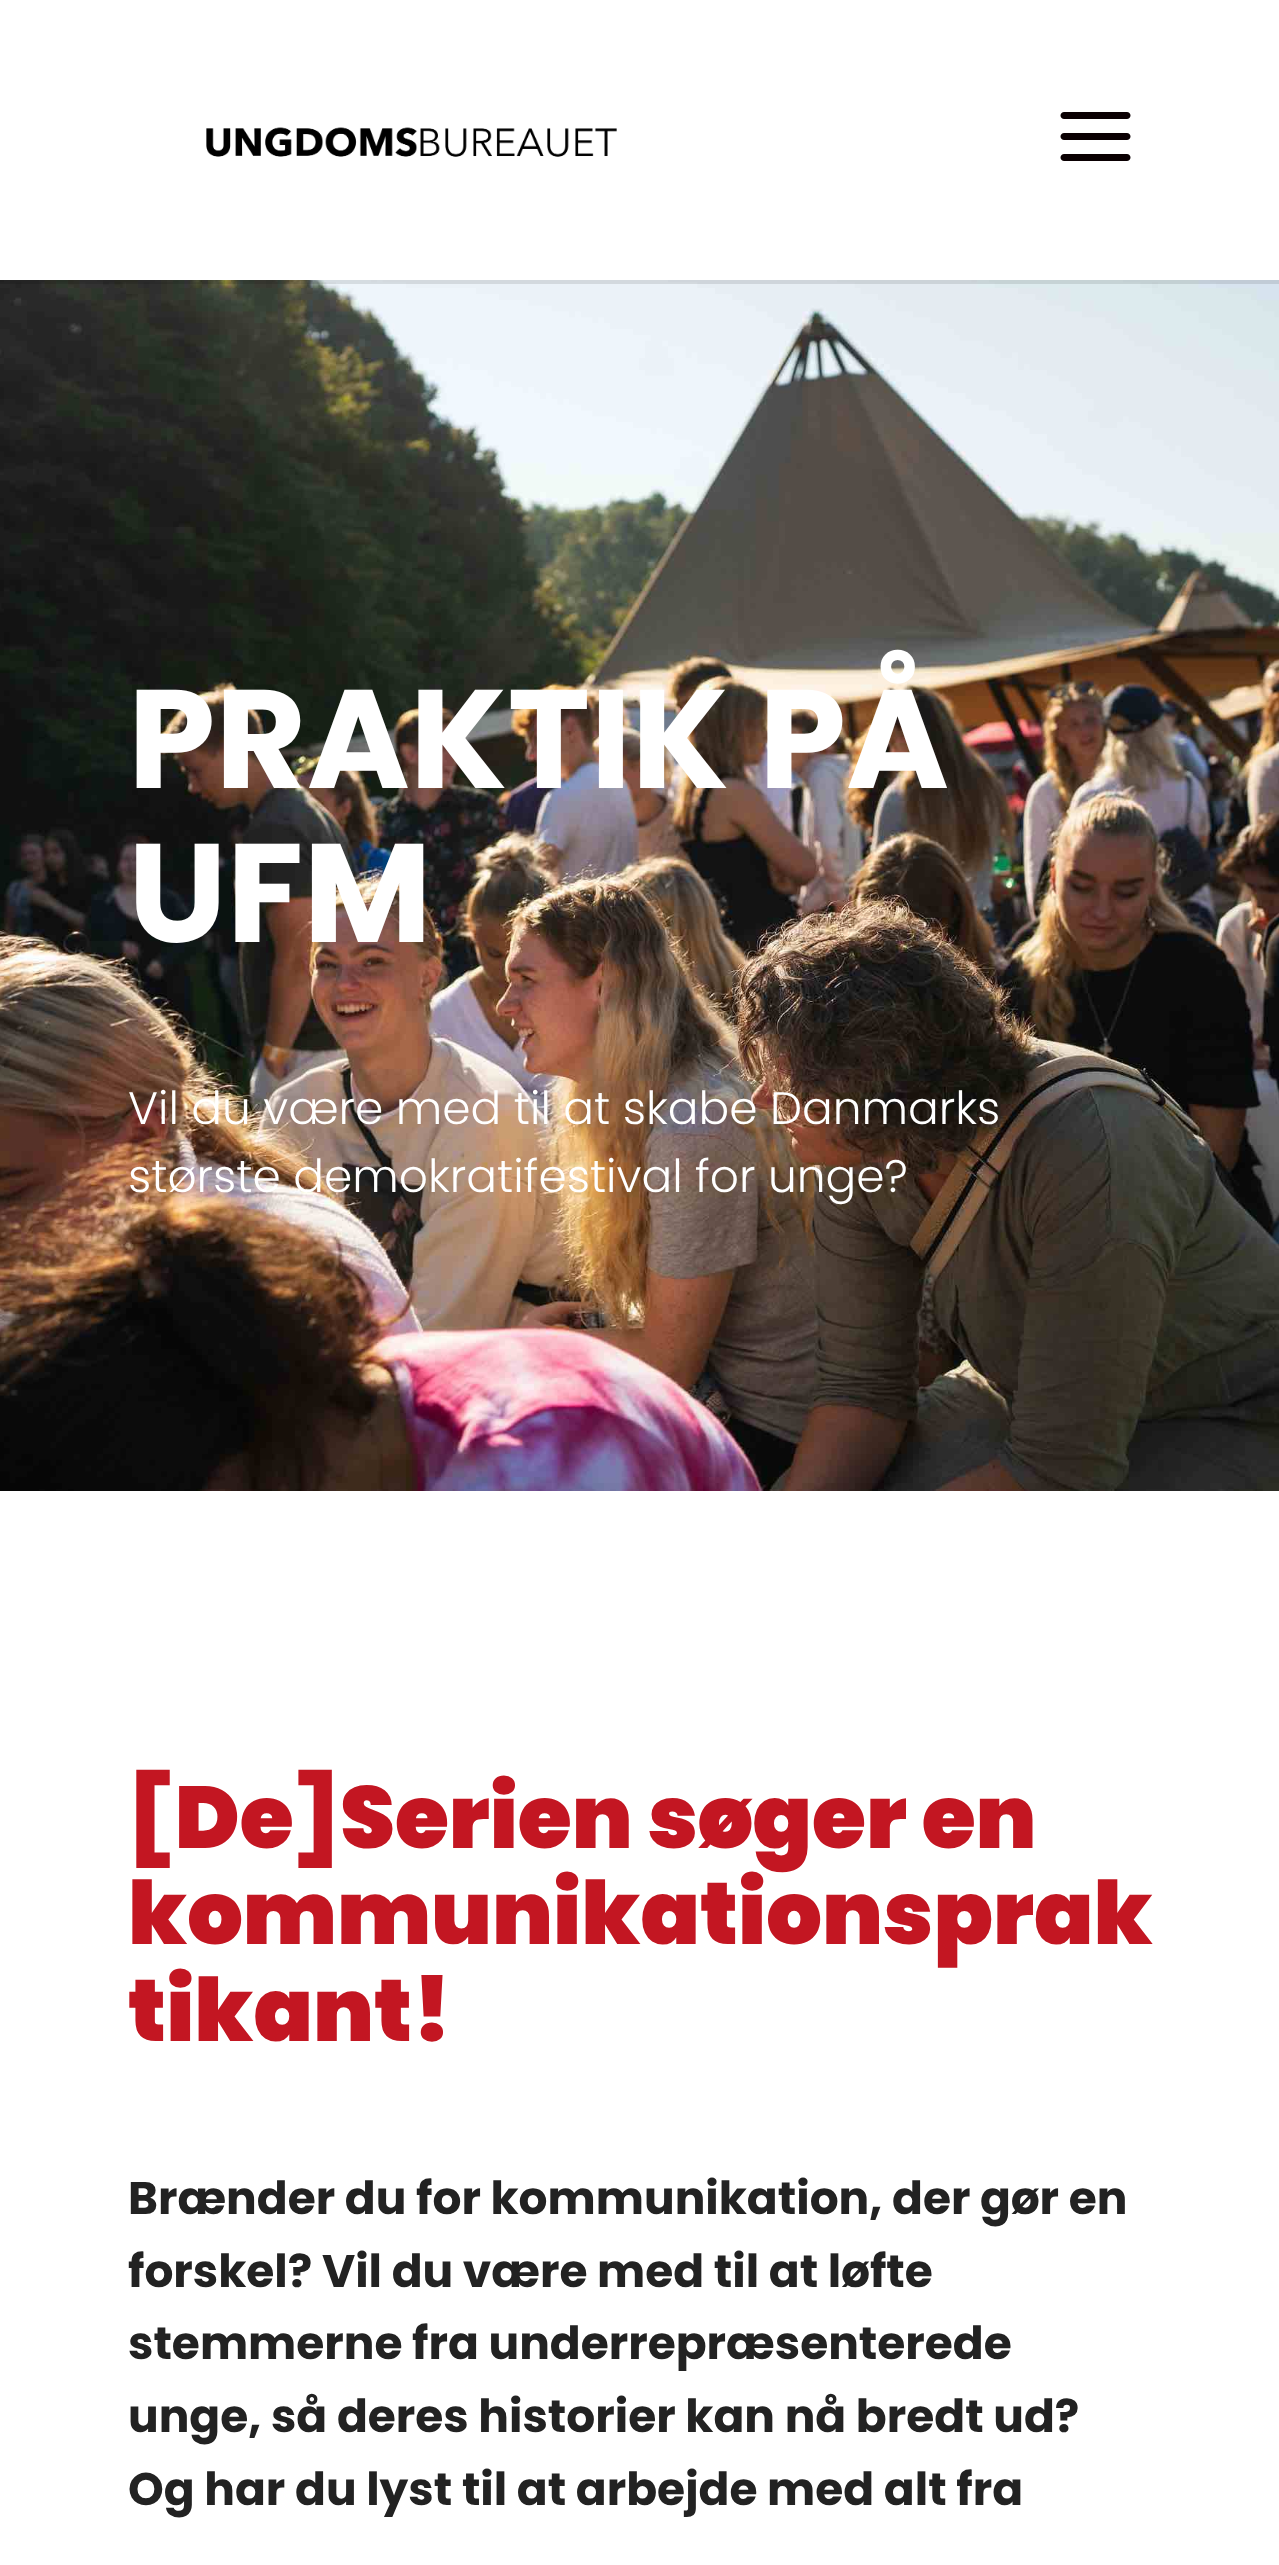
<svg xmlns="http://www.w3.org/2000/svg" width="1279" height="2565">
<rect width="100%" height="100%" fill="#fff"/>
<image x="0" y="280" width="1279" height="1211" href="media/3.png"/>
<rect y="280" width="1279" height="4" fill="#0000001a"/>
<image x="206" y="127" width="411" height="30" href="media/1.png"/>
<image x="1060" y="112" width="71" height="49" href="media/2.png"/>
<text x="128" y="788" style="font-family:Poppins;font-size:140px;font-weight:bold;fill:#fff">PRAKTIK PÅ</text>
<text x="128" y="942" style="font-family:Poppins;font-size:140px;font-weight:bold;fill:#fff">UFM</text>
<text x="128" y="1124" style="font-family:Poppins;font-size:45.5px;font-weight:300;fill:#fff">Vil du være med til at skabe Danmarks</text>
<text x="128" y="1192" style="font-family:Poppins;font-size:45.5px;font-weight:300;fill:#fff">største demokratifestival for unge?</text>
<text x="128" y="1848" style="font-family:Poppins;font-size:87.5px;font-weight:900;fill:#c31622">[De]Serien søger en</text>
<text x="128" y="1944" style="font-family:Poppins;font-size:87.5px;font-weight:900;fill:#c31622">kommunikationsprak</text>
<text x="128" y="2041" style="font-family:Poppins;font-size:87.5px;font-weight:900;fill:#c31622">tikant!</text>
<text x="128" y="2214" style="font-family:Poppins;font-size:45.5px;font-weight:bold;fill:#222">Brænder du for kommunikation, der gør en</text>
<text x="128" y="2287" style="font-family:Poppins;font-size:45.5px;font-weight:bold;fill:#222">forskel? Vil du være med til at løfte</text>
<text x="128" y="2359" style="font-family:Poppins;font-size:45.5px;font-weight:bold;fill:#222">stemmerne fra underrepræsenterede</text>
<text x="128" y="2432" style="font-family:Poppins;font-size:45.5px;font-weight:bold;fill:#222">unge, så deres historier kan nå bredt ud?</text>
<text x="128" y="2505" style="font-family:Poppins;font-size:45.5px;font-weight:bold;fill:#222">Og har du lyst til at arbejde med alt fra</text>
</svg>
